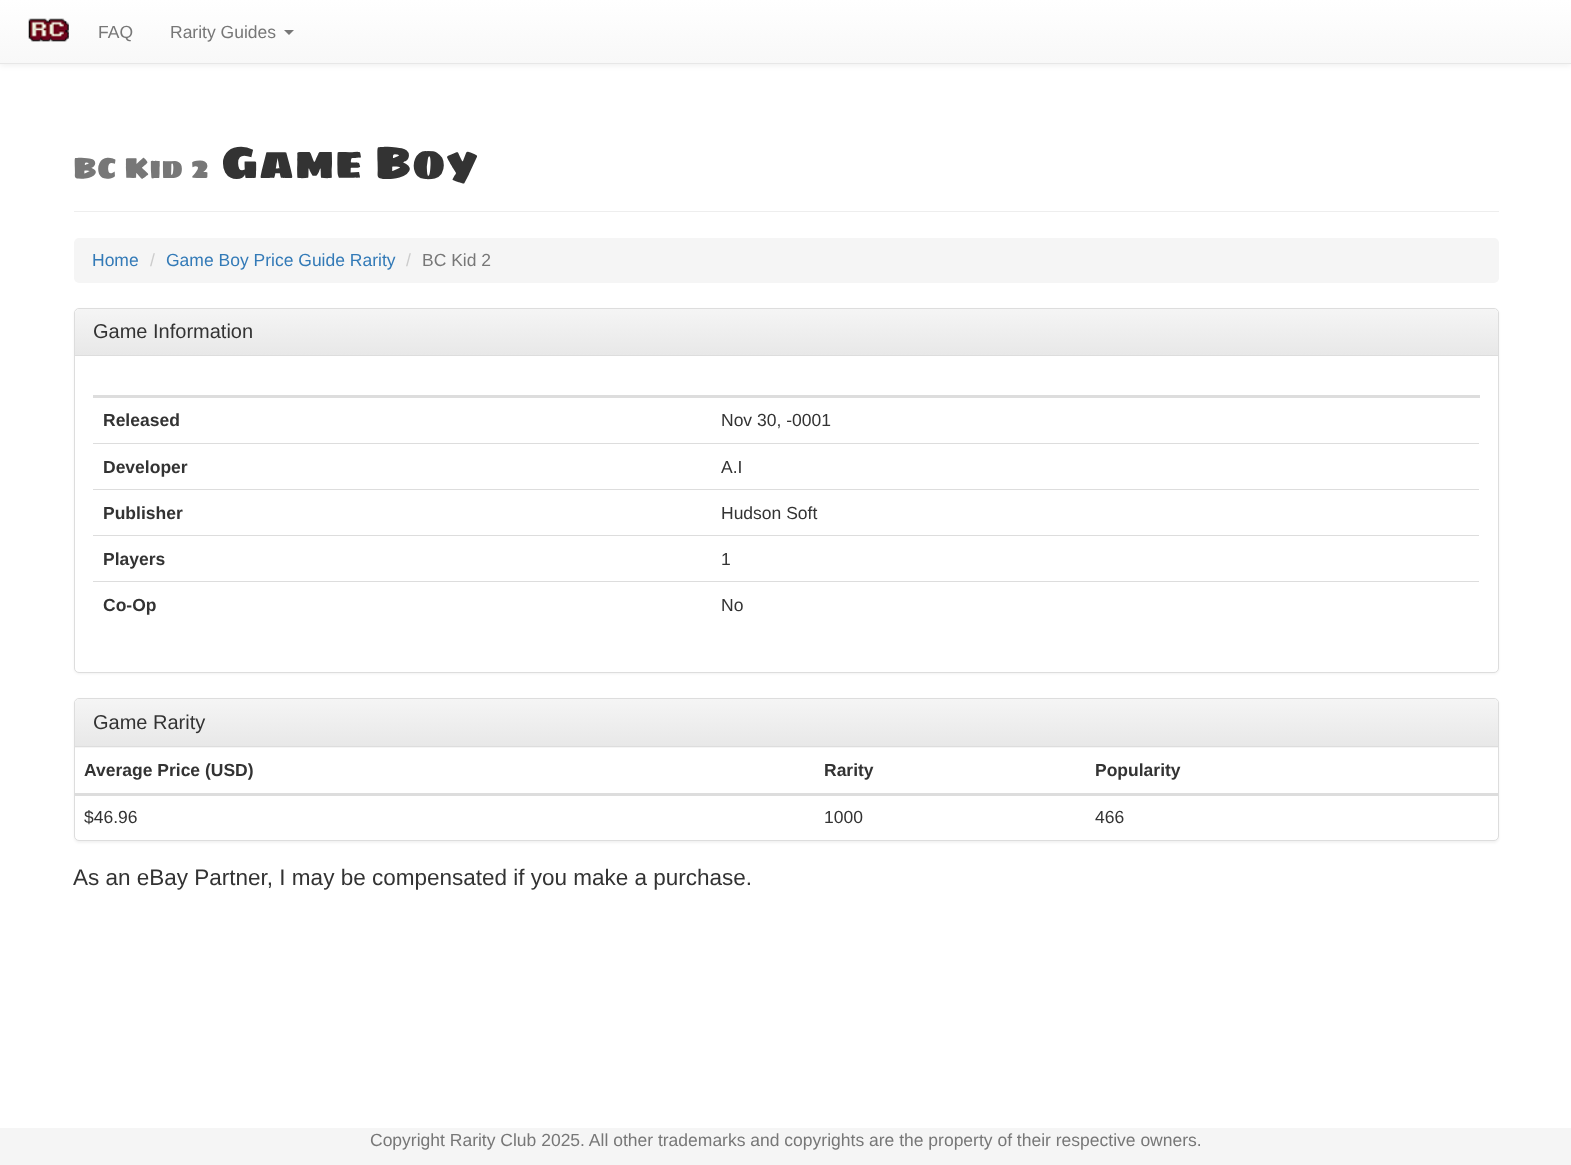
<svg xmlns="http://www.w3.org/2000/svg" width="1571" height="1165">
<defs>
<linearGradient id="g1" gradientUnits="userSpaceOnUse" x1="786" y1="0" x2="786" y2="63"><stop offset="0" stop-color="#fff"/><stop offset="1" stop-color="#f8f8f8"/></linearGradient>
<linearGradient id="g2" gradientUnits="userSpaceOnUse" x1="786" y1="309" x2="786" y2="355"><stop offset="0" stop-color="#f5f5f5"/><stop offset="1" stop-color="#e8e8e8"/></linearGradient>
<linearGradient id="g3" gradientUnits="userSpaceOnUse" x1="786" y1="699" x2="786" y2="746"><stop offset="0" stop-color="#f5f5f5"/><stop offset="1" stop-color="#e8e8e8"/></linearGradient>
</defs>
<rect width="100%" height="100%" fill="#fff"/>
<rect y="1" width="1571" height="64" fill="#00000012" filter="blur(3px)"/>
<rect width="1571" height="63" fill="url(#g1)"/>
<rect y="63" width="1571" height="1" fill="#e7e7e7"/>
<image x="28" y="18" width="41" height="24" href="media/1.png"/>
<text x="98" y="38" style="font-family:Liberation Sans;font-size:17.5px;fill:#777">FAQ</text>
<text x="170" y="38" style="font-family:Liberation Sans;font-size:17.5px;fill:#777">Rarity Guides</text>
<path d="M284 30h10l-5 5z" fill="#777"/>
<rect x="74" y="211" width="1425" height="1" fill="#eee"/>
<text x="73" y="178" style="font-family:Sigmar One;font-size:29.25px;fill:#777">BC Kid 2</text>
<text x="221" y="178" style="font-family:Sigmar One;font-size:45px;fill:#333">Game Boy</text>
<rect x="74" y="238" width="1425" height="45" rx="5" fill="#f5f5f5"/>
<text x="92" y="266" style="font-family:Liberation Sans;font-size:17.5px;fill:#337ab7">Home</text>
<text x="150" y="266" style="font-family:Liberation Sans;font-size:17.5px;fill:#ccc">/</text>
<text x="166" y="266" style="font-family:Liberation Sans;font-size:17.5px;fill:#337ab7">Game Boy Price Guide Rarity</text>
<text x="406" y="266" style="font-family:Liberation Sans;font-size:17.5px;fill:#ccc">/</text>
<text x="422" y="266" style="font-family:Liberation Sans;font-size:17.5px;fill:#777">BC Kid 2</text>
<rect x="74" y="309" width="1425" height="365" rx="5" fill="#0000000d" filter="blur(1px)"/>
<rect x="74.5" y="308.5" width="1424" height="364" rx="4.5" fill="#fff" stroke="#ddd"/>
<path d="M79 309h1415c2 0 4 2 4 4v42h-1423v-42c0-2 2-4 4-4z" fill="url(#g2)"/>
<rect x="75" y="355" width="1423" height="1" fill="#ddd"/>
<text x="93" y="338" style="font-family:Liberation Sans;font-size:20px;fill:#333">Game Information</text>
<rect x="93" y="395" width="1387" height="3" fill="#ddd"/>
<text x="103" y="426" style="font-family:Liberation Sans;font-size:17.5px;font-weight:bold;fill:#333">Released</text>
<text x="721" y="426" style="font-family:Liberation Sans;font-size:17.5px;fill:#333">Nov 30, -0001</text>
<text x="103" y="473" style="font-family:Liberation Sans;font-size:17.5px;font-weight:bold;fill:#333">Developer</text>
<rect x="93" y="443" width="1386" height="1" fill="#ddd"/>
<text x="721" y="473" style="font-family:Liberation Sans;font-size:17.5px;fill:#333">A.I</text>
<text x="103" y="519" style="font-family:Liberation Sans;font-size:17.5px;font-weight:bold;fill:#333">Publisher</text>
<rect x="93" y="489" width="1386" height="1" fill="#ddd"/>
<text x="721" y="519" style="font-family:Liberation Sans;font-size:17.5px;fill:#333">Hudson Soft</text>
<text x="103" y="565" style="font-family:Liberation Sans;font-size:17.5px;font-weight:bold;fill:#333">Players</text>
<rect x="93" y="535" width="1386" height="1" fill="#ddd"/>
<text x="721" y="565" style="font-family:Liberation Sans;font-size:17.5px;fill:#333">1</text>
<text x="103" y="611" style="font-family:Liberation Sans;font-size:17.5px;font-weight:bold;fill:#333">Co-Op</text>
<rect x="93" y="581" width="1386" height="1" fill="#ddd"/>
<text x="721" y="611" style="font-family:Liberation Sans;font-size:17.5px;fill:#333">No</text>
<rect x="74" y="699" width="1425" height="144" rx="5" fill="#0000000d" filter="blur(1px)"/>
<rect x="74.5" y="698.5" width="1424" height="142" rx="4.5" fill="#fff" stroke="#ddd"/>
<path d="M79 699h1415c2 0 4 2 4 4v45h-1423v-45c0-2 2-4 4-4z" fill="#f5f5f5"/>
<path d="M79 699h1415c2 0 4 2 4 4v43h-1423v-43c0-2 2-4 4-4z" fill="url(#g3)"/>
<rect x="75" y="746" width="1423" height="1" fill="#ddd"/>
<text x="93" y="729" style="font-family:Liberation Sans;font-size:20px;fill:#333">Game Rarity</text>
<text x="84" y="776" style="font-family:Liberation Sans;font-size:17.5px;font-weight:bold;fill:#333">Average Price (USD)</text>
<text x="824" y="776" style="font-family:Liberation Sans;font-size:17.5px;font-weight:bold;fill:#333">Rarity</text>
<rect x="74" y="793" width="1425" height="3" fill="#ddd"/>
<text x="1095" y="776" style="font-family:Liberation Sans;font-size:17.5px;font-weight:bold;fill:#333">Popularity</text>
<text x="84" y="823" style="font-family:Liberation Sans;font-size:17.5px;fill:#333">$46.96</text>
<text x="824" y="823" style="font-family:Liberation Sans;font-size:17.5px;fill:#333">1000</text>
<text x="1095" y="823" style="font-family:Liberation Sans;font-size:17.5px;fill:#333">466</text>
<text x="73" y="885" style="font-family:Liberation Sans;font-size:22.5px;fill:#333">As an eBay Partner, I may be compensated if you make a purchase.</text>
<rect y="1128" width="1571" height="37" fill="#f5f5f5"/>
<text x="370" y="1146" style="font-family:Liberation Sans;font-size:17.5px;fill:#777">Copyright Rarity Club 2025. All other trademarks and copyrights are the property of their respective owners.</text>
</svg>
